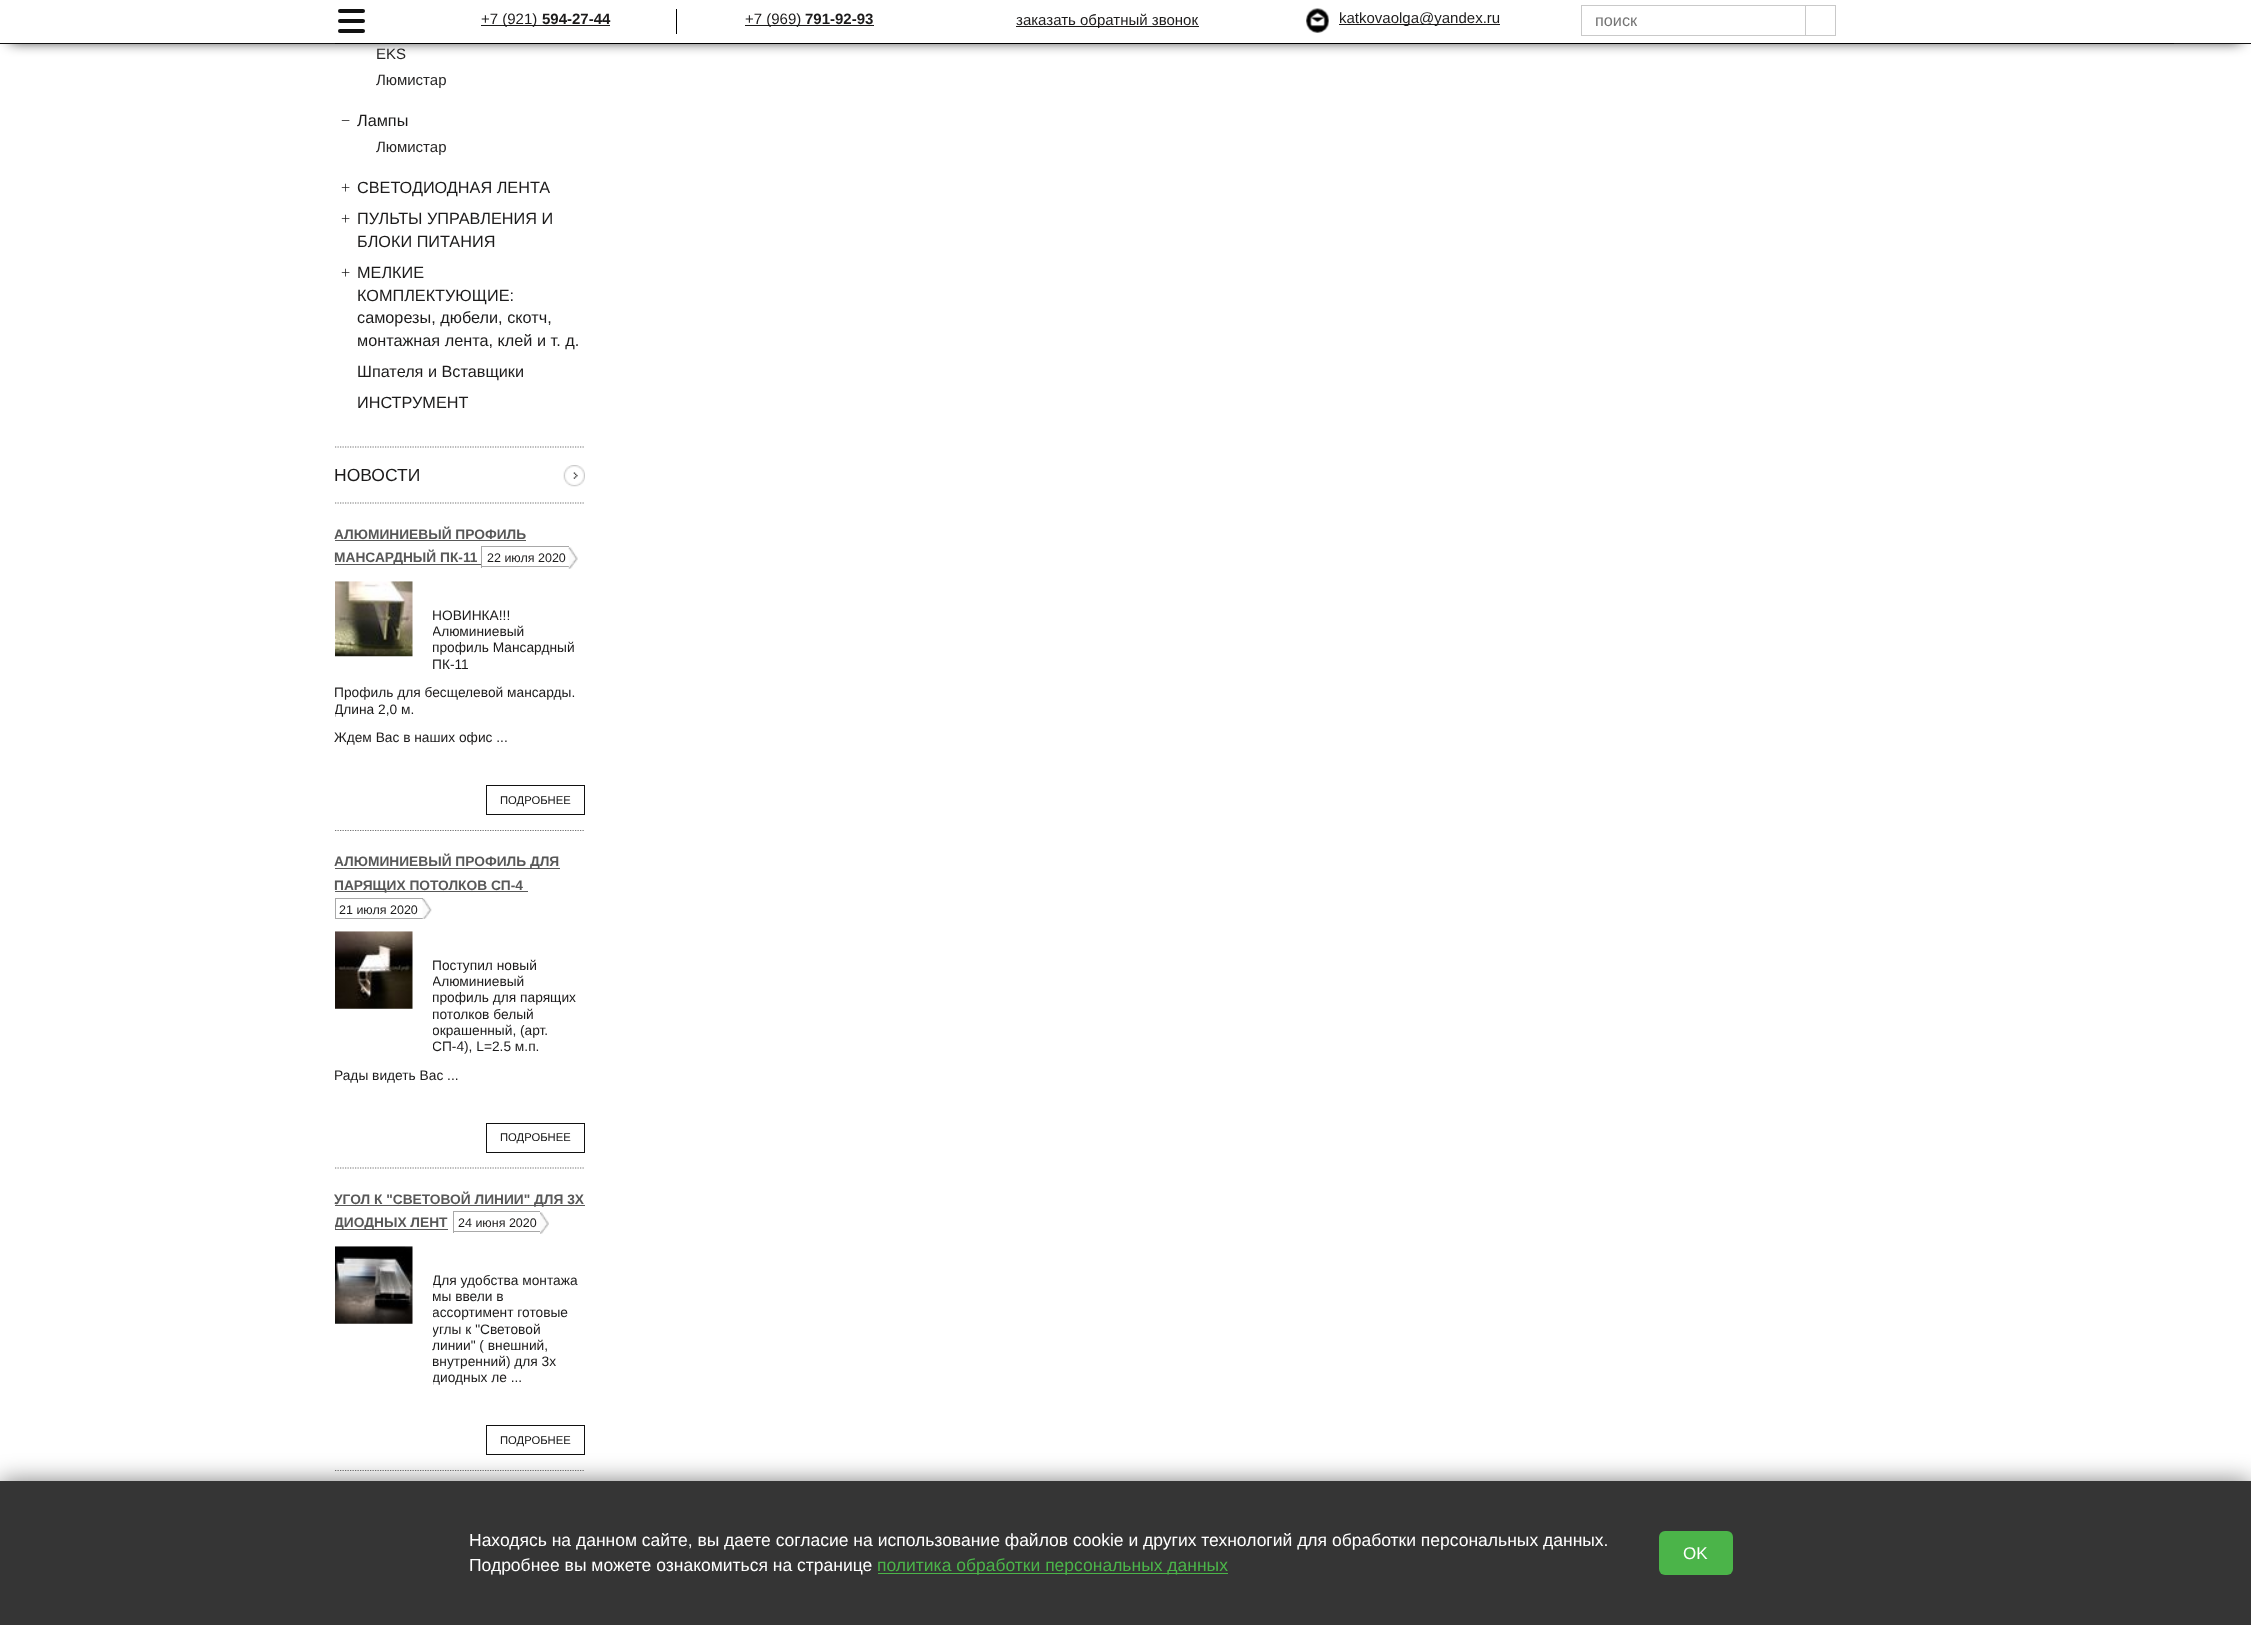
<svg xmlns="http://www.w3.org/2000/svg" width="2251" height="1625">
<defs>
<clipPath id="clip1"><rect x="433" y="608" width="152" height="65"/></clipPath>
<clipPath id="clip2"><rect x="335" y="685" width="250" height="33"/></clipPath>
<clipPath id="clip3"><rect x="433" y="958" width="152" height="97"/></clipPath>
<clipPath id="clip4"><rect x="335" y="1186" width="250" height="48"/></clipPath>
<clipPath id="clip5"><rect x="433" y="1273" width="152" height="113"/></clipPath>
</defs>
<rect width="100%" height="100%" fill="#fff"/>
<rect x="10" y="18" width="2231" height="23" fill="#000" filter="blur(7px)"/>
<rect y="2" width="2251" height="41" fill="#fff"/>
<rect y="43" width="2251" height="1" fill="#111"/>
<rect x="335" y="43" width="1839" height="1" fill="#000"/>
<rect x="338" y="19" width="27" height="4" rx="2" fill="#111"/>
<rect x="338" y="9" width="27" height="4" rx="2" fill="#111"/>
<rect x="338" y="29" width="27" height="4" rx="2" fill="#111"/>
<rect x="481" y="25" width="129" height="1" fill="#1c1b1b"/>
<text x="481" y="24" style="font-family:Liberation Sans;font-size:15px;fill:#1c1b1b">+7 (921)</text>
<text x="542" y="24" style="font-family:Liberation Sans;font-size:15px;font-weight:bold;fill:#1c1b1b">594-27-44</text>
<rect x="676" y="9" width="1" height="25" fill="#000"/>
<rect x="745" y="25" width="129" height="1" fill="#1c1b1b"/>
<text x="745" y="24" style="font-family:Liberation Sans;font-size:15px;fill:#1c1b1b">+7 (969)</text>
<text x="805" y="24" style="font-family:Liberation Sans;font-size:15px;font-weight:bold;fill:#1c1b1b">791-92-93</text>
<rect x="1016" y="26" width="183" height="1" fill="#1c1b1b"/>
<text x="1016" y="25" style="font-family:Liberation Sans;font-size:15px;fill:#1c1b1b">заказать обратный звонок</text>
<image x="1306" y="8" width="23" height="25" href="media/1.png"/>
<rect x="1339" y="24" width="161" height="1" fill="#1c1b1b"/>
<text x="1339" y="23" style="font-family:Liberation Sans;font-size:15px;fill:#1c1b1b">katkovaolga@yandex.ru</text>
<rect x="1581.5" y="5.5" width="224" height="30" fill="none" stroke="#c9c9c9"/>
<text x="1595" y="26" style="font-family:Liberation Sans;font-size:16.25px;fill:#757575">поиск</text>
<rect x="1805.5" y="5.5" width="30" height="30" fill="none" stroke="#c9c9c9"/>
<path d="M335 447h250" fill="none" stroke="#747474" stroke-width="1.2" stroke-dasharray="1.25 1.25"/>
<text x="376" y="59" style="font-family:Liberation Sans;font-size:15px;fill:#272626">EKS</text>
<text x="376" y="85" style="font-family:Liberation Sans;font-size:15px;fill:#272626">Люмистар</text>
<text x="341" y="126" style="font-family:Liberation Serif;font-size:16.25px;fill:#1c1b1b">−</text>
<text x="357" y="126" style="font-family:Liberation Sans;font-size:16.25px;fill:#1c1b1b">Лампы</text>
<text x="376" y="152" style="font-family:Liberation Sans;font-size:15px;fill:#272626">Люмистар</text>
<text x="341" y="193" style="font-family:Liberation Serif;font-size:16.25px;fill:#1c1b1b">+</text>
<text x="357" y="193" style="font-family:Liberation Sans;font-size:16.25px;fill:#1c1b1b">СВЕТОДИОДНАЯ ЛЕНТА</text>
<text x="341" y="224" style="font-family:Liberation Serif;font-size:16.25px;fill:#1c1b1b">+</text>
<text x="357" y="224" style="font-family:Liberation Sans;font-size:16.25px;fill:#1c1b1b">ПУЛЬТЫ УПРАВЛЕНИЯ И</text>
<text x="357" y="247" style="font-family:Liberation Sans;font-size:16.25px;fill:#1c1b1b">БЛОКИ ПИТАНИЯ</text>
<text x="341" y="278" style="font-family:Liberation Serif;font-size:16.25px;fill:#1c1b1b">+</text>
<text x="357" y="278" style="font-family:Liberation Sans;font-size:16.25px;fill:#1c1b1b">МЕЛКИЕ</text>
<text x="357" y="301" style="font-family:Liberation Sans;font-size:16.25px;fill:#1c1b1b">КОМПЛЕКТУЮЩИЕ:</text>
<text x="357" y="323" style="font-family:Liberation Sans;font-size:16.25px;fill:#1c1b1b">саморезы, дюбели, скотч,</text>
<text x="357" y="346" style="font-family:Liberation Sans;font-size:16.25px;fill:#1c1b1b">монтажная лента, клей и т. д.</text>
<text x="357" y="377" style="font-family:Liberation Sans;font-size:16.25px;fill:#1c1b1b">Шпателя и Вставщики</text>
<text x="357" y="408" style="font-family:Liberation Sans;font-size:16.25px;fill:#1c1b1b">ИНСТРУМЕНТ</text>
<path d="M335 503h250" fill="none" stroke="#747474" stroke-width="1.2" stroke-dasharray="1.25 1.25"/>
<text x="334" y="481" style="font-family:Liberation Sans;font-size:17.5px;fill:#1c1b1b">НОВОСТИ</text>
<image x="563" y="465" width="22" height="22" href="media/2.png"/>
<text x="334" y="539" style="font-family:Liberation Sans;font-size:13.75px;font-weight:bold;fill:#585858">АЛЮМИНИЕВЫЙ ПРОФИЛЬ</text>
<rect x="335" y="540" width="191" height="1" fill="#585858"/>
<rect x="335" y="564" width="146" height="1" fill="#585858"/>
<text x="334" y="562" style="font-family:Liberation Sans;font-size:13.75px;font-weight:bold;fill:#585858">МАНСАРДНЫЙ ПК-11</text>
<rect x="481" y="546" width="88" height="1" fill="#a8a8a8"/>
<rect x="481" y="566" width="88" height="1" fill="#a8a8a8"/>
<rect x="481" y="546" width="1" height="22" fill="#a8a8a8"/>
<text x="487" y="562" style="font-family:Liberation Sans;font-size:12.5px;fill:#1c1b1b">22 июля 2020</text>
<image x="568" y="547" width="10" height="22" href="media/3.png"/>
<path d="M335 830.5h250" fill="none" stroke="#747474" stroke-width="1.2" stroke-dasharray="1.25 1.25"/>
<image x="335" y="581" width="78" height="76" href="media/4.png"/>
<text x="432" y="620" style="font-family:Liberation Sans;font-size:13.75px;fill:#1c1b1b">НОВИНКА!!!</text>
<g clip-path="url(#clip1)">
<text x="432" y="636" style="font-family:Liberation Sans;font-size:13.75px;fill:#1c1b1b">Алюминиевый</text>
<text x="432" y="652" style="font-family:Liberation Sans;font-size:13.75px;fill:#1c1b1b">профиль Мансардный</text>
</g>
<text x="432" y="669" style="font-family:Liberation Sans;font-size:13.75px;fill:#1c1b1b">ПК-11</text>
<text x="334" y="697" style="font-family:Liberation Sans;font-size:13.75px;fill:#1c1b1b">Профиль для бесщелевой мансарды.</text>
<g clip-path="url(#clip2)">
<text x="334" y="714" style="font-family:Liberation Sans;font-size:13.75px;fill:#1c1b1b">Длина 2,0 м.</text>
</g>
<text x="334" y="742" style="font-family:Liberation Sans;font-size:13.75px;fill:#1c1b1b">Ждем Вас в наших офис ...</text>
<rect x="486.5" y="785.5" width="98" height="29" fill="none" stroke="#111"/>
<text x="500" y="804" style="font-family:Liberation Sans;font-size:11.25px;fill:#111">ПОДРОБНЕЕ</text>
<rect x="335" y="868" width="225" height="1" fill="#585858"/>
<text x="334" y="866" style="font-family:Liberation Sans;font-size:13.75px;font-weight:bold;fill:#585858">АЛЮМИНИЕВЫЙ ПРОФИЛЬ ДЛЯ</text>
<rect x="335" y="891" width="193" height="1" fill="#585858"/>
<text x="334" y="890" style="font-family:Liberation Sans;font-size:13.75px;font-weight:bold;fill:#585858">ПАРЯЩИХ ПОТОЛКОВ СП-4</text>
<rect x="335" y="898" width="88" height="1" fill="#a8a8a8"/>
<rect x="335" y="918" width="88" height="1" fill="#a8a8a8"/>
<rect x="335" y="898" width="1" height="21" fill="#a8a8a8"/>
<text x="339" y="914" style="font-family:Liberation Sans;font-size:12.5px;fill:#1c1b1b">21 июля 2020</text>
<image x="422" y="898" width="10" height="21" href="media/5.png"/>
<path d="M335 1168h250" fill="none" stroke="#747474" stroke-width="1.2" stroke-dasharray="1.25 1.25"/>
<image x="335" y="931" width="78" height="78" href="media/6.png"/>
<text x="432" y="970" style="font-family:Liberation Sans;font-size:13.75px;fill:#1c1b1b">Поступил новый</text>
<g clip-path="url(#clip3)">
<text x="432" y="986" style="font-family:Liberation Sans;font-size:13.75px;fill:#1c1b1b">Алюминиевый</text>
<text x="432" y="1002" style="font-family:Liberation Sans;font-size:13.75px;fill:#1c1b1b">профиль для парящих</text>
<text x="432" y="1019" style="font-family:Liberation Sans;font-size:13.75px;fill:#1c1b1b">потолков белый</text>
<text x="432" y="1035" style="font-family:Liberation Sans;font-size:13.75px;fill:#1c1b1b">окрашенный, (арт.</text>
<text x="432" y="1051" style="font-family:Liberation Sans;font-size:13.75px;fill:#1c1b1b">СП-4), L=2.5 м.п.</text>
</g>
<text x="334" y="1080" style="font-family:Liberation Sans;font-size:13.75px;fill:#1c1b1b">Рады видеть Вас ...</text>
<rect x="486.5" y="1123.5" width="98" height="29" fill="none" stroke="#111"/>
<text x="500" y="1141" style="font-family:Liberation Sans;font-size:11.25px;fill:#111">ПОДРОБНЕЕ</text>
<rect x="335" y="1205" width="250" height="1" fill="#585858"/>
<text x="334" y="1204" style="font-family:Liberation Sans;font-size:13.75px;font-weight:bold;fill:#585858">УГОЛ К "СВЕТОВОЙ ЛИНИИ" ДЛЯ 3Х</text>
<rect x="335" y="1229" width="113" height="1" fill="#585858"/>
<g clip-path="url(#clip4)">
<text x="334" y="1227" style="font-family:Liberation Sans;font-size:13.75px;font-weight:bold;fill:#585858">ДИОДНЫХ ЛЕНТ</text>
</g>
<rect x="453" y="1211" width="87" height="1" fill="#a8a8a8"/>
<rect x="453" y="1231" width="87" height="1" fill="#a8a8a8"/>
<rect x="453" y="1211" width="1" height="22" fill="#a8a8a8"/>
<text x="458" y="1227" style="font-family:Liberation Sans;font-size:12.5px;fill:#1c1b1b">24 июня 2020</text>
<image x="540" y="1212" width="9" height="22" href="media/7.png"/>
<path d="M335 1470.5h250" fill="none" stroke="#747474" stroke-width="1.2" stroke-dasharray="1.25 1.25"/>
<image x="335" y="1246" width="78" height="78" href="media/8.png"/>
<g clip-path="url(#clip5)">
<text x="432" y="1285" style="font-family:Liberation Sans;font-size:13.75px;fill:#1c1b1b">Для удобства монтажа</text>
<text x="432" y="1301" style="font-family:Liberation Sans;font-size:13.75px;fill:#1c1b1b">мы ввели в</text>
<text x="432" y="1317" style="font-family:Liberation Sans;font-size:13.75px;fill:#1c1b1b">ассортимент готовые</text>
<text x="432" y="1334" style="font-family:Liberation Sans;font-size:13.75px;fill:#1c1b1b">углы к "Световой</text>
</g>
<text x="432" y="1350" style="font-family:Liberation Sans;font-size:13.75px;fill:#1c1b1b">линии" ( внешний,</text>
<g clip-path="url(#clip5)">
<text x="432" y="1366" style="font-family:Liberation Sans;font-size:13.75px;fill:#1c1b1b">внутренний) для 3х</text>
<text x="432" y="1382" style="font-family:Liberation Sans;font-size:13.75px;fill:#1c1b1b">диодных ле ...</text>
</g>
<rect x="486.5" y="1425.5" width="98" height="29" fill="none" stroke="#111"/>
<text x="500" y="1444" style="font-family:Liberation Sans;font-size:11.25px;fill:#111">ПОДРОБНЕЕ</text>
<rect y="1481" width="2251" height="144" fill="#00000080" filter="blur(12.5px)"/>
<rect y="1481" width="2251" height="144" fill="#353535"/>
<text x="469" y="1546" style="font-family:Liberation Sans;font-size:17.5px;fill:#fff">Находясь на данном сайте, вы даете согласие на использование файлов cookie и других технологий для обработки персональных данных.</text>
<text x="469" y="1571" style="font-family:Liberation Sans;font-size:17.5px;fill:#fff">Подробнее вы можете ознакомиться на странице</text>
<rect x="878" y="1573" width="350" height="1" fill="#4bb449"/>
<text x="877" y="1571" style="font-family:Liberation Sans;font-size:17.5px;fill:#4bb449">политика обработки персональных данных</text>
<rect x="1659" y="1531" width="74" height="44" rx="6" fill="#4bb449"/>
<text x="1683" y="1559" style="font-family:Liberation Sans;font-size:17px;fill:#fff">OK</text>
</svg>
